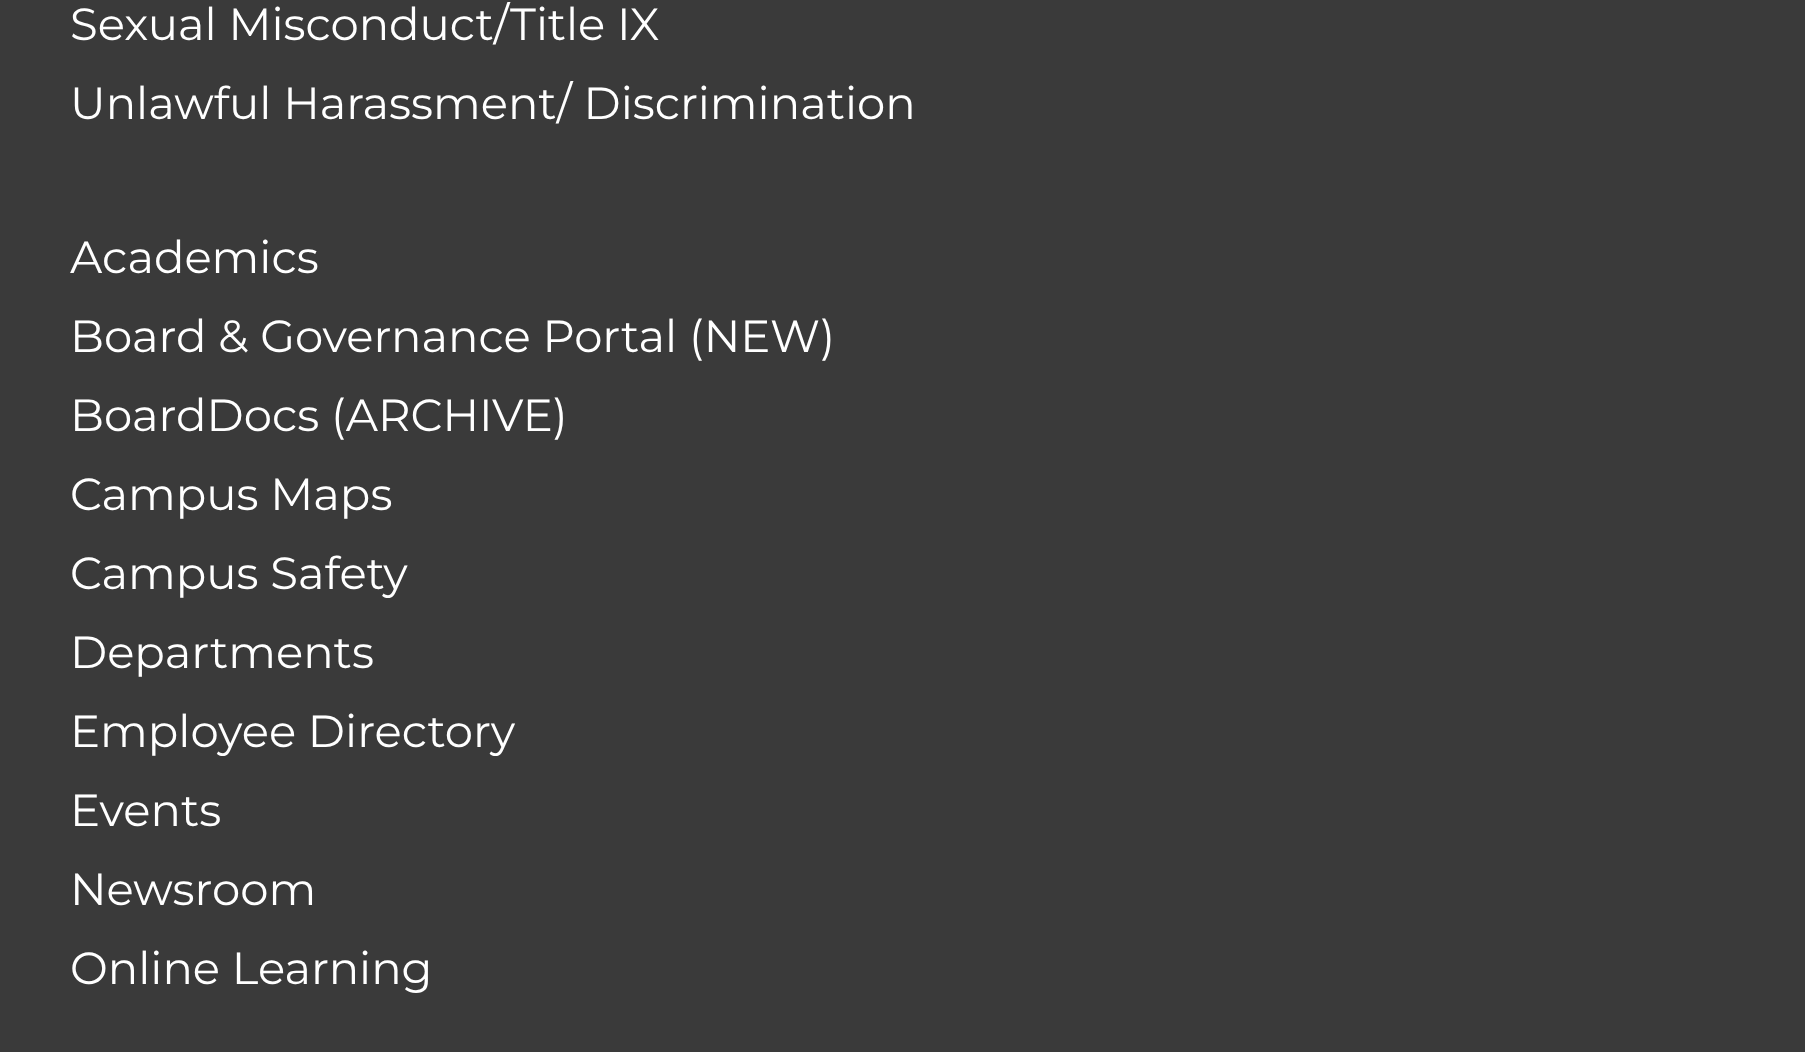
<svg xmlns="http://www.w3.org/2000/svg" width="1805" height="1052">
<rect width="100%" height="100%" fill="#3a3a3a"/>
<text x="70" y="40" style="font-family:Montserrat;font-size:45px;fill:#fff">Sexual Misconduct/Title IX</text>
<text x="70" y="119" style="font-family:Montserrat;font-size:45px;fill:#fff">Unlawful Harassment/ Discrimination</text>
<text x="70" y="273" style="font-family:Montserrat;font-size:45px;fill:#fff">Academics</text>
<text x="70" y="352" style="font-family:Montserrat;font-size:45px;fill:#fff">Board &amp; Governance Portal (NEW)</text>
<text x="70" y="431" style="font-family:Montserrat;font-size:45px;fill:#fff">BoardDocs (ARCHIVE)</text>
<text x="70" y="510" style="font-family:Montserrat;font-size:45px;fill:#fff">Campus Maps</text>
<text x="70" y="589" style="font-family:Montserrat;font-size:45px;fill:#fff">Campus Safety</text>
<text x="70" y="668" style="font-family:Montserrat;font-size:45px;fill:#fff">Departments</text>
<text x="70" y="747" style="font-family:Montserrat;font-size:45px;fill:#fff">Employee Directory</text>
<text x="70" y="826" style="font-family:Montserrat;font-size:45px;fill:#fff">Events</text>
<text x="70" y="905" style="font-family:Montserrat;font-size:45px;fill:#fff">Newsroom</text>
<text x="70" y="984" style="font-family:Montserrat;font-size:45px;fill:#fff">Online Learning</text>
</svg>
